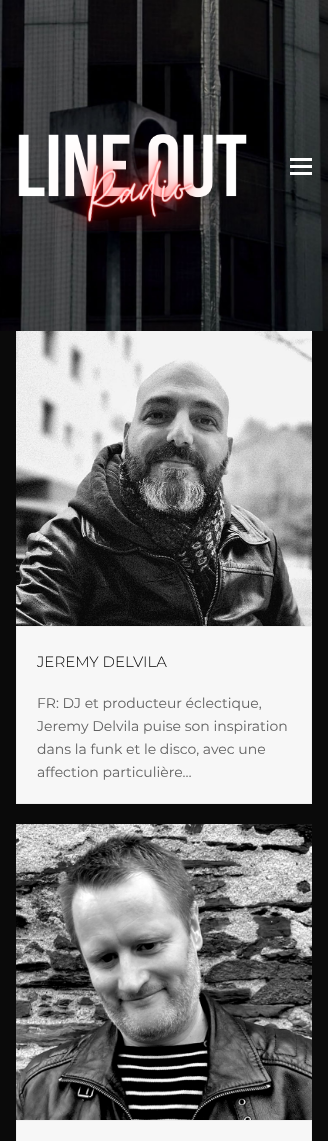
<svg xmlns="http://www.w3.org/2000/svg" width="328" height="1141">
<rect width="100%" height="100%" fill="#0a0a0a"/>
<image x="0" y="0" width="328" height="331" href="media/1.png"/>
<image x="18" y="134" width="229" height="97" href="media/2.png"/>
<rect x="290" y="165" width="22" height="3" fill="#fff"/>
<rect x="290" y="158" width="22" height="3" fill="#fff"/>
<rect x="290" y="172" width="22" height="3" fill="#fff"/>
<image x="16" y="331" width="296" height="295" href="media/3.png"/>
<rect x="16.5" y="626.5" width="295" height="177" fill="#f7f7f7" stroke="#eee"/>
<text x="37" y="667" style="font-family:Montserrat;font-size:15px;font-weight:300;fill:#000">JEREMY DELVILA</text>
<text x="37" y="708" style="font-family:Montserrat;font-size:14px;fill:#616161">FR: DJ et producteur éclectique,</text>
<text x="37" y="731" style="font-family:Montserrat;font-size:14px;fill:#616161">Jeremy Delvila puise son inspiration</text>
<text x="37" y="754" style="font-family:Montserrat;font-size:14px;fill:#616161">dans la funk et le disco, avec une</text>
<text x="37" y="777" style="font-family:Montserrat;font-size:14px;fill:#616161">affection particulière…</text>
<image x="16" y="824" width="296" height="296" href="media/4.png"/>
<rect x="16.5" y="1120.5" width="295" height="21" fill="#f7f7f7" stroke="#eee"/>
</svg>
